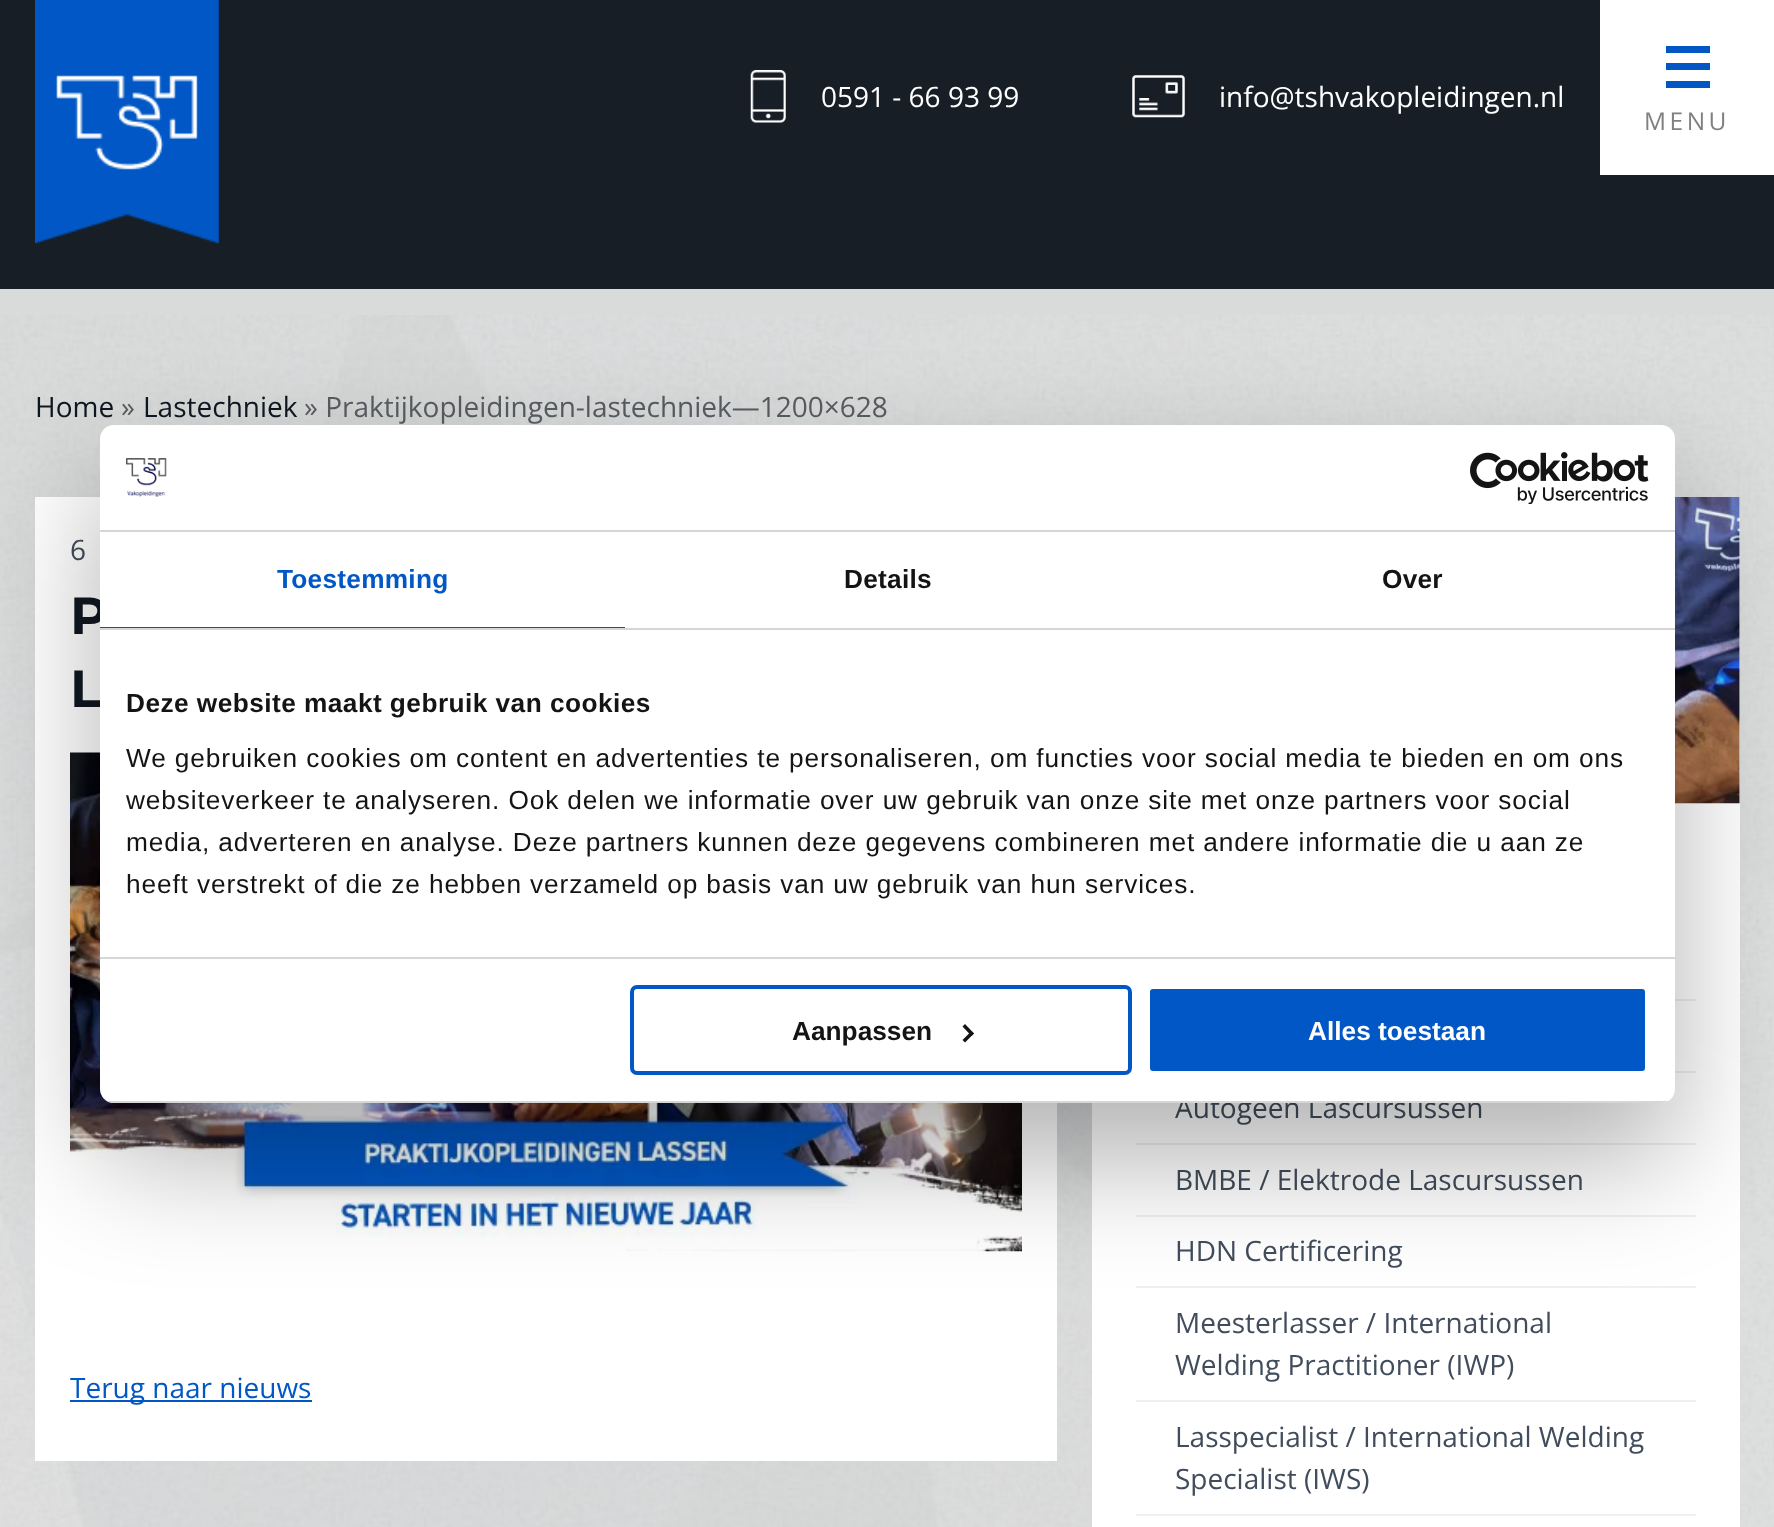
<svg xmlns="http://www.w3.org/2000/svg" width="1774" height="1527">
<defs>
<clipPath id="clip1"><rect x="100" y="425" width="1575" height="678" rx="14"/></clipPath>
</defs>
<rect width="100%" height="100%" fill="#d9dbdb"/>
<rect width="1774" height="289" fill="#171e26"/>
<image x="35" y="0" width="184" height="244" href="media/1.png"/>
<image x="750" y="70" width="36" height="53" href="media/2.png"/>
<text x="821" y="107" style="font-family:Open Sans;font-size:28px;fill:#fff">0591 - 66 93 99</text>
<image x="1132" y="75" width="53" height="43" href="media/3.png"/>
<text x="1219" y="107" style="font-family:Open Sans;font-size:28px;fill:#fff">info@tshvakopleidingen.nl</text>
<rect x="1600" width="174" height="175" fill="#fff"/>
<rect x="1666" y="46" width="44" height="7" fill="#0057c5"/>
<rect x="1666" y="63" width="44" height="7" fill="#0057c5"/>
<rect x="1666" y="81" width="44" height="7" fill="#0057c5"/>
<text x="1644" y="130" style="font-family:Open Sans;font-size:24.5px;letter-spacing:3.5px;fill:#808080">MENU</text>
<image x="0" y="315" width="1774" height="1212" href="media/4.png"/>
<text x="35" y="417" style="font-family:Open Sans;font-size:28px;fill:#0f1721">Home</text>
<text x="121" y="417" style="font-family:Open Sans;font-size:28px;fill:#595d62">»</text>
<text x="143" y="417" style="font-family:Open Sans;font-size:28px;fill:#0f1721">Lastechniek</text>
<text x="304" y="417" style="font-family:Open Sans;font-size:28px;fill:#595d62">» Praktijkopleidingen-lastechniek—1200×628</text>
<rect x="35" y="497" width="1022" height="964" fill="#fff"/>
<text x="70" y="560" style="font-family:Open Sans;font-size:28px;letter-spacing:2px;fill:#414d5c">6</text>
<text x="70" y="634" style="font-family:Montserrat;font-size:52px;font-weight:bold;fill:#0f1721">P</text>
<text x="70" y="707" style="font-family:Montserrat;font-size:52px;font-weight:bold;fill:#0f1721">L</text>
<image x="70" y="752" width="952" height="500" href="media/5.png"/>
<rect x="70" y="1400" width="242" height="2" fill="#0057c5"/>
<text x="70" y="1398" style="font-family:Open Sans;font-size:28px;fill:#0057c5">Terug naar nieuws</text>
<rect x="1092" y="497" width="648" height="1030" fill="#fff"/>
<image x="1675" y="497" width="65" height="307" href="media/6.png"/>
<rect x="1675" y="999" width="21" height="2" fill="#f0f0f0"/>
<rect x="1675" y="1071" width="21" height="2" fill="#f0f0f0"/>
<rect x="1136" y="1143" width="560" height="2" fill="#f0f0f0"/>
<text x="1175" y="1118" style="font-family:Open Sans;font-size:28px;fill:#414d5c">Autogeen Lascursussen</text>
<rect x="1136" y="1215" width="560" height="2" fill="#f0f0f0"/>
<text x="1175" y="1190" style="font-family:Open Sans;font-size:28px;fill:#414d5c">BMBE / Elektrode Lascursussen</text>
<rect x="1136" y="1286" width="560" height="2" fill="#f0f0f0"/>
<text x="1175" y="1261" style="font-family:Open Sans;font-size:28px;fill:#414d5c">HDN Certificering</text>
<rect x="1136" y="1400" width="560" height="2" fill="#f0f0f0"/>
<text x="1175" y="1333" style="font-family:Open Sans;font-size:28px;fill:#414d5c">Meesterlasser / International</text>
<text x="1175" y="1375" style="font-family:Open Sans;font-size:28px;fill:#414d5c">Welding Practitioner (IWP)</text>
<rect x="1136" y="1514" width="560" height="2" fill="#f0f0f0"/>
<text x="1175" y="1447" style="font-family:Open Sans;font-size:28px;fill:#414d5c">Lasspecialist / International Welding</text>
<text x="1175" y="1489" style="font-family:Open Sans;font-size:28px;fill:#414d5c">Specialist (IWS)</text>
<rect x="100" y="481" width="1575" height="678" rx="14" fill="#0000004d" filter="blur(59.5px)"/>
<rect x="100" y="425" width="1575" height="678" rx="14" fill="#fff"/>
<rect x="100" y="530" width="1575" height="2" fill="#d6d6d6"/>
<image x="126" y="458" width="41" height="39" href="media/7.png"/>
<image x="1470" y="452" width="179" height="52" href="media/8.png"/>
<rect x="100" y="628" width="1575" height="2" fill="#d6d6d6"/>
<rect x="100" y="627" width="525" height="1" fill="#0057c5"/>
<text x="277" y="588" style="font-family:Liberation Sans;font-size:26.25px;font-weight:bold;letter-spacing:0.25px;fill:#0057c5">Toestemming</text>
<text x="844" y="588" style="font-family:Liberation Sans;font-size:26.25px;font-weight:bold;letter-spacing:0.25px;fill:#141414">Details</text>
<text x="1382" y="588" style="font-family:Liberation Sans;font-size:26.25px;font-weight:bold;letter-spacing:0.25px;fill:#141414">Over</text>
<rect x="100" y="957" width="1575" height="2" fill="#d6d6d6"/>
<text x="126" y="712" style="font-family:Liberation Sans;font-size:26.25px;font-weight:bold;letter-spacing:0.45px;fill:#141414">Deze website maakt gebruik van cookies</text>
<text x="126" y="767" style="font-family:Liberation Sans;font-size:26.25px;letter-spacing:0.88px;fill:#141414">We gebruiken cookies om content en advertenties te personaliseren, om functies voor social media te bieden en om ons</text>
<text x="126" y="809" style="font-family:Liberation Sans;font-size:26.25px;letter-spacing:0.88px;fill:#141414">websiteverkeer te analyseren. Ook delen we informatie over uw gebruik van onze site met onze partners voor social</text>
<text x="126" y="851" style="font-family:Liberation Sans;font-size:26.25px;letter-spacing:0.88px;fill:#141414">media, adverteren en analyse. Deze partners kunnen deze gegevens combineren met andere informatie die u aan ze</text>
<text x="126" y="893" style="font-family:Liberation Sans;font-size:26.25px;letter-spacing:0.88px;fill:#141414">heeft verstrekt of die ze hebben verzameld op basis van uw gebruik van hun services.</text>
<g clip-path="url(#clip1)">
<rect x="100" y="1101" width="1575" height="2" fill="#d6d6d6"/>
</g>
<rect x="632" y="987" width="498" height="86" rx="5" fill="none" stroke="#0057c5" stroke-width="4"/>
<text x="792" y="1040" style="font-family:Liberation Sans;font-size:26.25px;font-weight:bold;fill:#141414">Aanpassen</text>
<path d="M965 1024l9 9.5l-2.5 2.5l-9-9.5z" fill="#141414"/>
<path d="M971.5 1031l2.5 2.5l-9 9l-2.5-2.5z" fill="#141414"/>
<rect x="1148" y="987" width="499" height="86" rx="5" fill="#0057c5" stroke="#fff" stroke-width="4"/>
<text x="1308" y="1040" style="font-family:Liberation Sans;font-size:26.25px;font-weight:bold;fill:#fff">Alles toestaan</text>
</svg>
